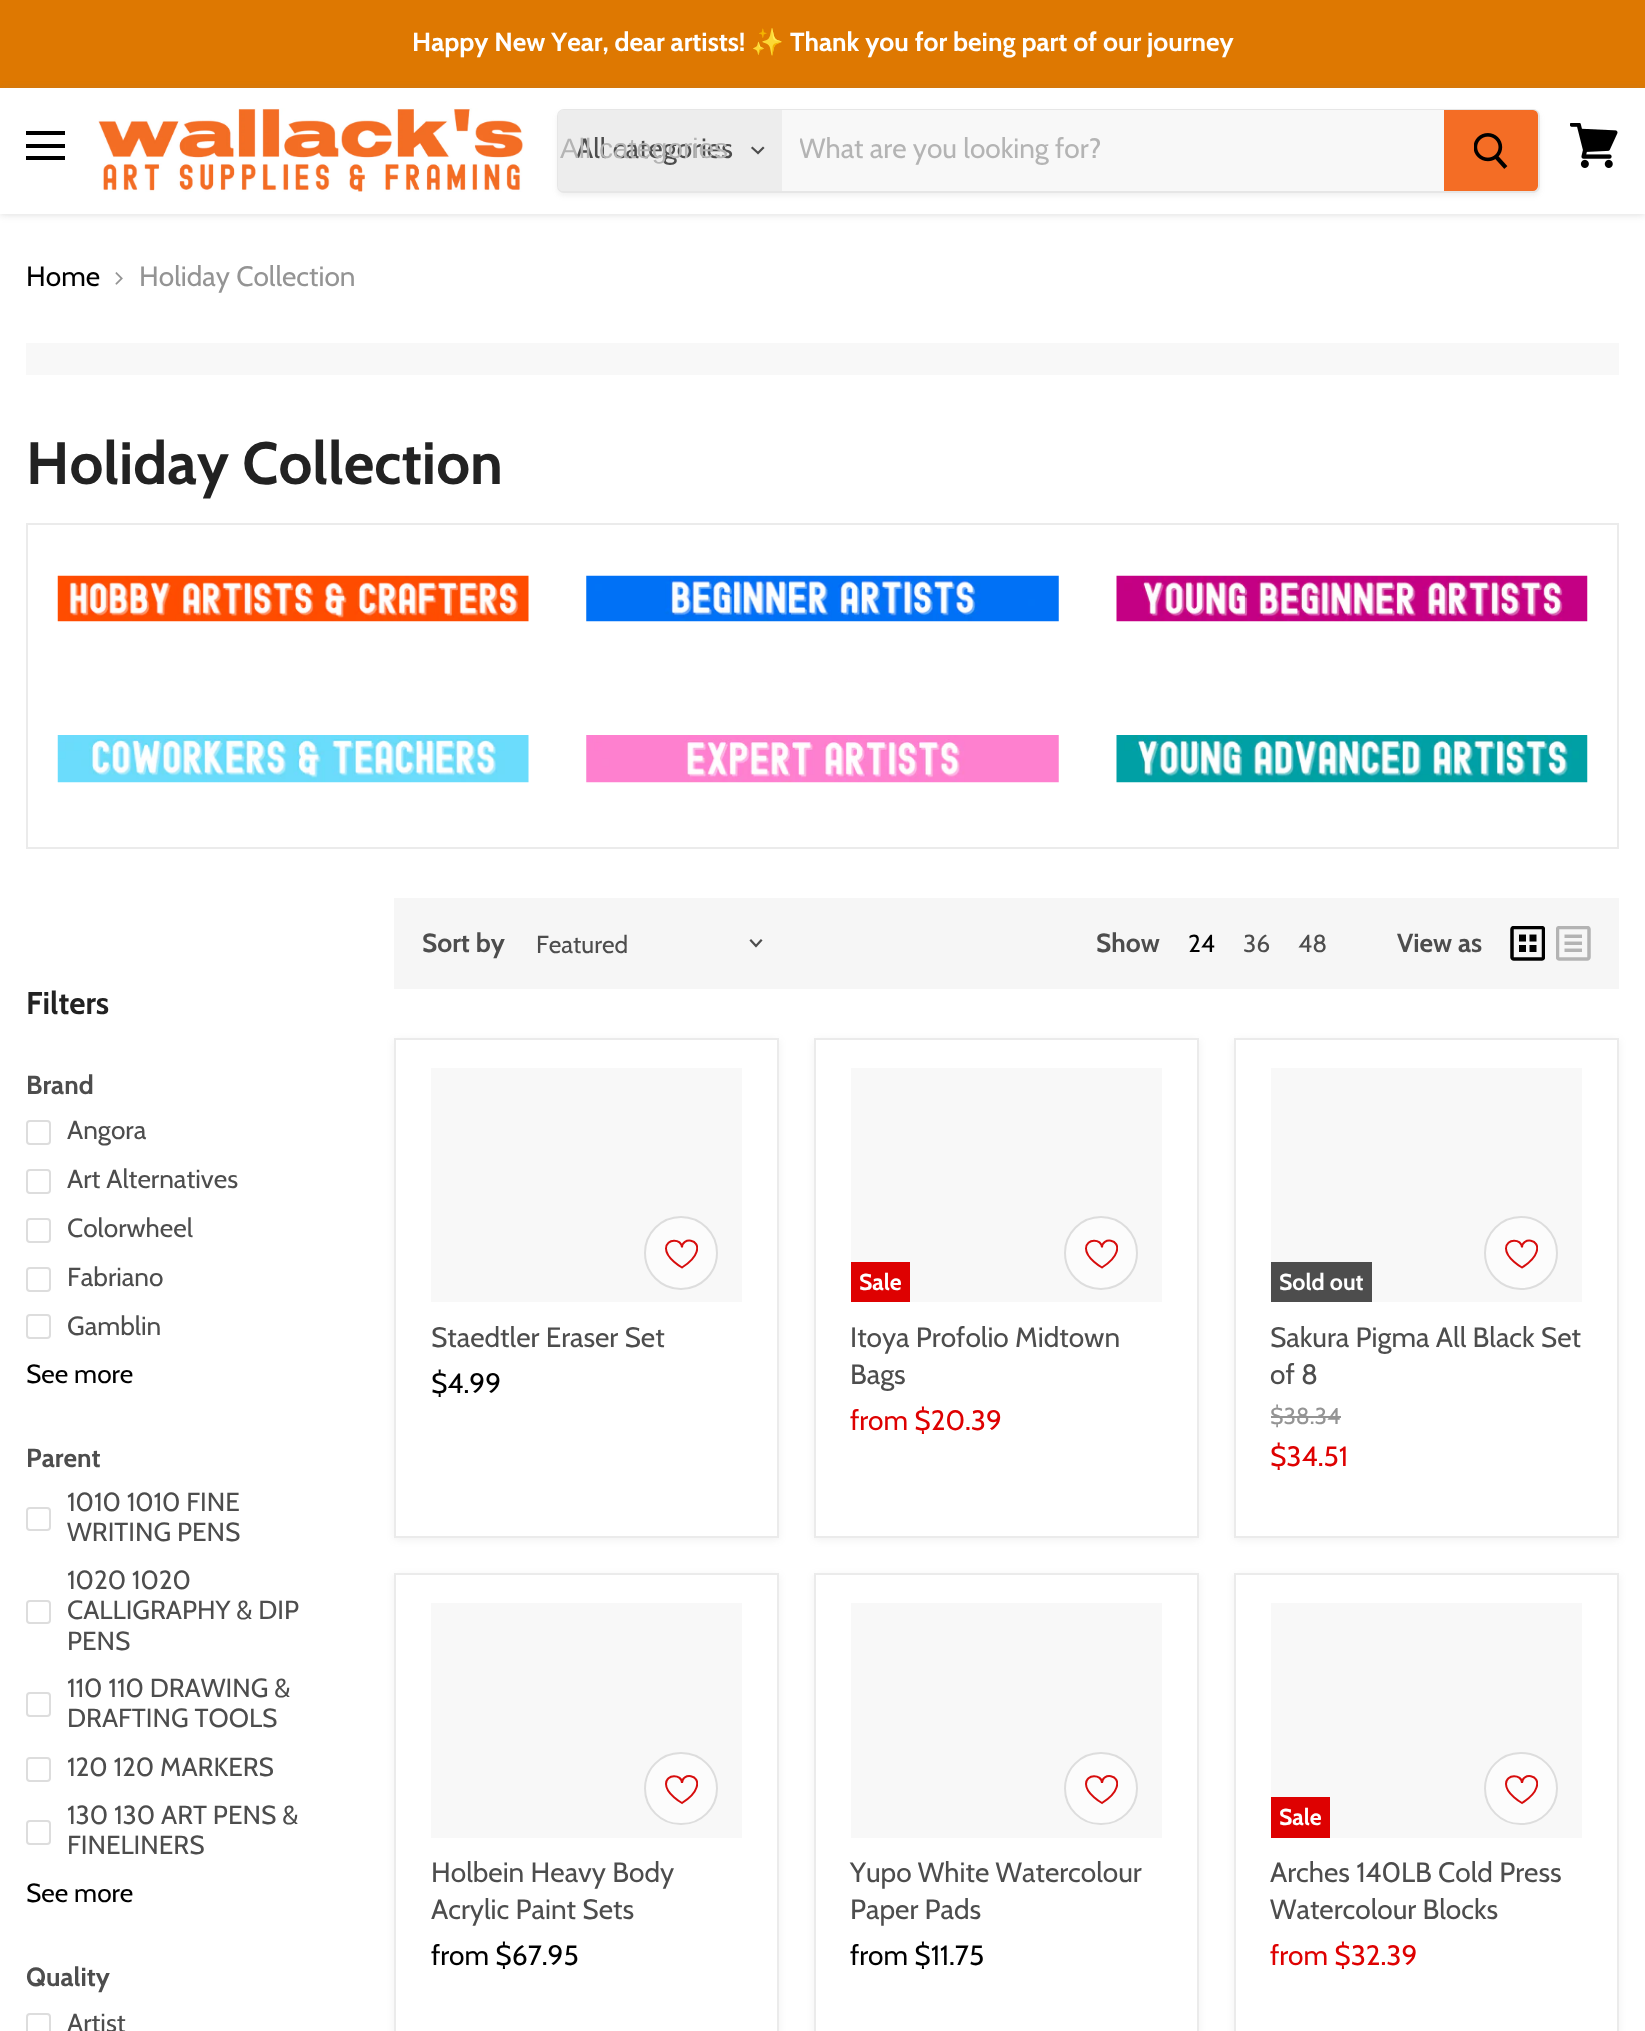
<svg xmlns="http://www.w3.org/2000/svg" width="1645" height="2031">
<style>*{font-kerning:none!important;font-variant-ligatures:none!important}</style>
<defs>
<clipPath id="clip1"><path d="M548 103h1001v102h-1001zm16 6h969c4 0 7 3 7 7v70c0 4-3 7-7 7h-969c-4 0-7-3-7-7v-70c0-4 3-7 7-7z" clip-rule="evenodd"/></clipPath>
<clipPath id="clip2"><rect x="800" y="131" width="626" height="34"/></clipPath>
<clipPath id="clip3"><rect x="663" y="1236" width="35" height="35"/></clipPath>
<clipPath id="clip4"><rect x="1083" y="1236" width="35" height="35"/></clipPath>
<clipPath id="clip5"><rect x="1503" y="1236" width="35" height="35"/></clipPath>
<clipPath id="clip6"><rect x="663" y="1771" width="35" height="35"/></clipPath>
<clipPath id="clip7"><rect x="1083" y="1771" width="35" height="35"/></clipPath>
<clipPath id="clip8"><rect x="1503" y="1771" width="35" height="35"/></clipPath>
</defs>
<rect width="100%" height="100%" fill="#fff"/>
<rect width="1645" height="88" fill="#de7801"/>
<text x="412" y="51" style="font-family:Cabin;font-size:26.25px;font-weight:bold;fill:#fff">Happy New Year, dear artists!</text>
<text x="751" y="51" style="font-family:Noto Color Emoji;font-size:26.25px;font-weight:bold;fill:#fff">✨</text>
<text x="790" y="51" style="font-family:Cabin;font-size:26.25px;font-weight:bold;fill:#fff">Thank you for being part of our journey</text>
<rect y="89" width="1645" height="126" fill="#80808040" filter="blur(3.5px)"/>
<rect y="88" width="1645" height="126" fill="#fff"/>
<rect x="26" y="131" width="39" height="4" fill="#000"/>
<rect x="26" y="144" width="39" height="4" fill="#000"/>
<rect x="26" y="156" width="39" height="4" fill="#000"/>
<image x="98" y="108" width="426" height="84" href="media/1.png"/>
<g clip-path="url(#clip1)">
<rect x="557" y="112" width="983" height="84" rx="7" fill="#8080801c" filter="blur(2.5px)"/>
</g>
<rect x="558" y="110" width="981" height="82" rx="6" fill="none" stroke="#80808033" stroke-width="2"/>
<path d="M563 110h219v81h-219c-3 0-5-2-5-5v-71c0-3 2-5 5-5z" fill="#ededed"/>
<text x="576" y="158" style="font-family:Cabin;font-size:28px;fill:#4d4d4d">All categories</text>
<text x="560" y="158" style="font-family:Liberation Sans;font-size:28px;fill:#b4b4b4">All categories</text>
<path d="M758 153l5-5m-5 5l-5.5-5" fill="none" stroke="#4d4d4d" stroke-width="2.2" stroke-linecap="square"/>
<rect x="782" y="110" width="662" height="81" fill="#f8f8f8"/>
<g clip-path="url(#clip2)">
<text x="799" y="158" style="font-family:Cabin;font-size:28px;fill:#b4b4b4">What are you looking for?</text>
</g>
<path d="M1445 111h88c2 0 4 2 4 4v71c0 2-2 4-4 4h-88z" fill="#f46d25" stroke="#f46d25" stroke-width="2"/>
<image x="1474" y="133" width="34" height="36" href="media/2.png"/>
<image x="1570" y="123" width="48" height="45" href="media/3.png"/>
<text x="26" y="286" style="font-family:Cabin;font-size:28px;fill:#000">Home</text>
<image x="115" y="272" width="8" height="13" href="media/4.png"/>
<text x="139" y="286" style="font-family:Cabin;font-size:28px;fill:#949494">Holiday Collection</text>
<rect x="26" y="343" width="1593" height="32" fill="#f8f8f8"/>
<text x="26" y="484" style="font-family:Cabin;font-size:59.5px;font-weight:bold;fill:#222">Holiday Collection</text>
<rect x="27" y="524" width="1591" height="324" fill="none" stroke="#80808029" stroke-width="2"/>
<image x="57" y="575" width="472" height="47" href="media/5.png"/>
<image x="586" y="575" width="473" height="47" href="media/6.png"/>
<image x="1116" y="575" width="472" height="47" href="media/7.png"/>
<image x="57" y="735" width="472" height="48" href="media/8.png"/>
<image x="586" y="735" width="473" height="48" href="media/9.png"/>
<image x="1116" y="735" width="472" height="48" href="media/10.png"/>
<text x="26" y="1014" style="font-family:Cabin;font-size:31.5px;font-weight:bold;fill:#222">Filters</text>
<text x="26" y="1094" style="font-family:Cabin;font-size:26.25px;font-weight:bold;fill:#4d4d4d">Brand</text>
<rect x="27" y="1121" width="23" height="23" rx="3" fill="none" stroke="#ddd" stroke-width="2"/>
<text x="67" y="1139" style="font-family:Cabin;font-size:26.25px;fill:#4d4d4d">Angora</text>
<rect x="27" y="1170" width="23" height="23" rx="3" fill="none" stroke="#ddd" stroke-width="2"/>
<text x="67" y="1188" style="font-family:Cabin;font-size:26.25px;fill:#4d4d4d">Art Alternatives</text>
<rect x="27" y="1219" width="23" height="23" rx="3" fill="none" stroke="#ddd" stroke-width="2"/>
<text x="67" y="1237" style="font-family:Cabin;font-size:26.25px;fill:#4d4d4d">Colorwheel</text>
<rect x="27" y="1268" width="23" height="23" rx="3" fill="none" stroke="#ddd" stroke-width="2"/>
<text x="67" y="1286" style="font-family:Cabin;font-size:26.25px;fill:#4d4d4d">Fabriano</text>
<rect x="27" y="1315" width="23" height="23" rx="3" fill="none" stroke="#ddd" stroke-width="2"/>
<text x="67" y="1335" style="font-family:Cabin;font-size:26.25px;fill:#4d4d4d">Gamblin</text>
<text x="26" y="1383" style="font-family:Cabin;font-size:26.25px;fill:#000">See more</text>
<text x="26" y="1467" style="font-family:Cabin;font-size:26.25px;font-weight:bold;fill:#4d4d4d">Parent</text>
<rect x="27" y="1508" width="23" height="22" rx="3" fill="none" stroke="#ddd" stroke-width="2"/>
<text x="67" y="1511" style="font-family:Cabin;font-size:26.25px;fill:#4d4d4d">1010 1010 FINE</text>
<text x="67" y="1541" style="font-family:Cabin;font-size:26.25px;fill:#4d4d4d">WRITING PENS</text>
<rect x="27" y="1601" width="23" height="22" rx="3" fill="none" stroke="#ddd" stroke-width="2"/>
<text x="67" y="1589" style="font-family:Cabin;font-size:26.25px;fill:#4d4d4d">1020 1020</text>
<text x="67" y="1619" style="font-family:Cabin;font-size:26.25px;fill:#4d4d4d">CALLIGRAPHY &amp; DIP</text>
<text x="67" y="1650" style="font-family:Cabin;font-size:26.25px;fill:#4d4d4d">PENS</text>
<rect x="27" y="1693" width="23" height="23" rx="3" fill="none" stroke="#ddd" stroke-width="2"/>
<text x="67" y="1697" style="font-family:Cabin;font-size:26.25px;fill:#4d4d4d">110 110 DRAWING &amp;</text>
<text x="67" y="1727" style="font-family:Cabin;font-size:26.25px;fill:#4d4d4d">DRAFTING TOOLS</text>
<rect x="27" y="1758" width="23" height="23" rx="3" fill="none" stroke="#ddd" stroke-width="2"/>
<text x="67" y="1776" style="font-family:Cabin;font-size:26.25px;fill:#4d4d4d">120 120 MARKERS</text>
<rect x="27" y="1821" width="23" height="23" rx="3" fill="none" stroke="#ddd" stroke-width="2"/>
<text x="67" y="1824" style="font-family:Cabin;font-size:26.25px;fill:#4d4d4d">130 130 ART PENS &amp;</text>
<text x="67" y="1854" style="font-family:Cabin;font-size:26.25px;fill:#4d4d4d">FINELINERS</text>
<text x="26" y="1902" style="font-family:Cabin;font-size:26.25px;fill:#000">See more</text>
<text x="26" y="1986" style="font-family:Cabin;font-size:26.25px;font-weight:bold;fill:#4d4d4d">Quality</text>
<rect x="27" y="2014" width="23" height="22" rx="3" fill="none" stroke="#ddd" stroke-width="2"/>
<text x="67" y="2032" style="font-family:Cabin;font-size:26.25px;fill:#4d4d4d">Artist</text>
<rect x="394" y="898" width="1225" height="91" fill="#f6f6f6"/>
<text x="422" y="952" style="font-family:Cabin;font-size:26.25px;font-weight:bold;fill:#4d4d4d">Sort by</text>
<text x="536" y="953" style="font-family:Cabin;font-size:24.5px;fill:#4d4d4d">Featured</text>
<path d="M756 946l5-5.5m-5 5.5l-5-5.5" fill="none" stroke="#4d4d4d" stroke-width="2.2" stroke-linecap="square"/>
<text x="1096" y="952" style="font-family:Cabin;font-size:26.25px;font-weight:bold;fill:#4d4d4d">Show</text>
<text x="1188" y="952" style="font-family:Cabin;font-size:24.5px;fill:#000">24</text>
<text x="1243" y="952" style="font-family:Cabin;font-size:24.5px;fill:#4d4d4d">36</text>
<text x="1298" y="952" style="font-family:Cabin;font-size:24.5px;fill:#4d4d4d">48</text>
<text x="1397" y="952" style="font-family:Cabin;font-size:26.25px;font-weight:bold;fill:#4d4d4d">View as</text>
<image x="1510" y="926" width="35" height="35" href="media/11.png"/>
<image x="1556" y="926" width="35" height="35" href="media/12.png"/>
<rect x="394" y="1040" width="385" height="500" fill="#8080801c" filter="blur(3.5px)"/>
<rect x="395" y="1039" width="383" height="498" fill="#fff" stroke="#ebebeb" stroke-width="2"/>
<rect x="431" y="1068" width="311" height="234" fill="#f8f8f8"/>
<circle cx="681" cy="1253" r="36" fill="#fcfcfc" stroke="#ddd" stroke-width="2"/>
<g clip-path="url(#clip3)">
<path d="M666 1248.5c0 10 16 19 16 19c5.5-3.5 12.5-9 14.5-15.5c4.5-13.5-14.5-15-14.5-4.5c0-9-16-9.5-16 1z" fill="none" stroke="#d70d0d" stroke-width="2"/>
</g>
<text x="431" y="1347" style="font-family:Cabin;font-size:28px;fill:#4d4d4d">Staedtler Eraser Set</text>
<text x="431" y="1393" style="font-family:Cabin;font-size:28px;fill:#000">$4.99</text>
<rect x="814" y="1040" width="385" height="500" fill="#8080801c" filter="blur(3.5px)"/>
<rect x="815" y="1039" width="383" height="498" fill="#fff" stroke="#ebebeb" stroke-width="2"/>
<rect x="851" y="1068" width="311" height="234" fill="#f8f8f8"/>
<rect x="851" y="1262" width="59" height="40" fill="#de0101"/>
<text x="859" y="1290" style="font-family:Cabin;font-size:23px;font-weight:bold;fill:#fff">Sale</text>
<circle cx="1101" cy="1253" r="36" fill="#fcfcfc" stroke="#ddd" stroke-width="2"/>
<g clip-path="url(#clip4)">
<path d="M1086 1248.5c0 10 16 19 16 19c5.5-3.5 12.5-9 14.5-15.5c4.5-13.5-14.5-15-14.5-4.5c0-9-16-9.5-16 1z" fill="none" stroke="#d70d0d" stroke-width="2"/>
</g>
<text x="850" y="1347" style="font-family:Cabin;font-size:28px;fill:#4d4d4d">Itoya Profolio Midtown</text>
<text x="850" y="1384" style="font-family:Cabin;font-size:28px;fill:#4d4d4d">Bags</text>
<text x="850" y="1430" style="font-family:Cabin;font-size:28px;fill:#de0101">from $20.39</text>
<rect x="1234" y="1040" width="385" height="500" fill="#8080801c" filter="blur(3.5px)"/>
<rect x="1235" y="1039" width="383" height="498" fill="#fff" stroke="#ebebeb" stroke-width="2"/>
<rect x="1271" y="1068" width="311" height="234" fill="#f8f8f8"/>
<rect x="1271" y="1262" width="101" height="40" fill="#4d4d4d"/>
<text x="1279" y="1290" style="font-family:Cabin;font-size:23px;font-weight:bold;fill:#fff">Sold out</text>
<circle cx="1521" cy="1253" r="36" fill="#fcfcfc" stroke="#ddd" stroke-width="2"/>
<g clip-path="url(#clip5)">
<path d="M1506 1248.5c0 10 16 19 16 19c5.5-3.5 12.5-9 14.5-15.5c4.5-13.5-14.5-15-14.5-4.5c0-9-16-9.5-16 1z" fill="none" stroke="#d70d0d" stroke-width="2"/>
</g>
<text x="1270" y="1347" style="font-family:Cabin;font-size:28px;fill:#4d4d4d">Sakura Pigma All Black Set</text>
<text x="1270" y="1384" style="font-family:Cabin;font-size:28px;fill:#4d4d4d">of 8</text>
<text x="1270" y="1424" style="font-family:Cabin;font-size:23px;fill:#949494">$38.34</text>
<rect x="1271" y="1416" width="70" height="2" fill="#949494"/>
<text x="1270" y="1466" style="font-family:Cabin;font-size:28px;fill:#de0101">$34.51</text>
<rect x="394" y="1575" width="385" height="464" fill="#8080801c" filter="blur(3.5px)"/>
<rect x="395" y="1574" width="383" height="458" fill="#fff" stroke="#ebebeb" stroke-width="2"/>
<rect x="431" y="1603" width="311" height="235" fill="#f8f8f8"/>
<rect x="645" y="1753" width="72" height="71" rx="35.5" fill="#fcfcfc" stroke="#ddd" stroke-width="2"/>
<g clip-path="url(#clip6)">
<path d="M666 1784c0 10 16 19 16 19c5.5-3.5 12.5-9 14.5-15.5c4.5-13.5-14.5-15-14.5-4.5c0-9-16-9.5-16 1z" fill="none" stroke="#d70d0d" stroke-width="2"/>
</g>
<text x="431" y="1882" style="font-family:Cabin;font-size:28px;fill:#4d4d4d">Holbein Heavy Body</text>
<text x="431" y="1919" style="font-family:Cabin;font-size:28px;fill:#4d4d4d">Acrylic Paint Sets</text>
<text x="431" y="1965" style="font-family:Cabin;font-size:28px;fill:#000">from $67.95</text>
<rect x="814" y="1575" width="385" height="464" fill="#8080801c" filter="blur(3.5px)"/>
<rect x="815" y="1574" width="383" height="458" fill="#fff" stroke="#ebebeb" stroke-width="2"/>
<rect x="851" y="1603" width="311" height="235" fill="#f8f8f8"/>
<rect x="1065" y="1753" width="72" height="71" rx="35.5" fill="#fcfcfc" stroke="#ddd" stroke-width="2"/>
<g clip-path="url(#clip7)">
<path d="M1086 1784c0 10 16 19 16 19c5.5-3.5 12.5-9 14.5-15.5c4.5-13.5-14.5-15-14.5-4.5c0-9-16-9.5-16 1z" fill="none" stroke="#d70d0d" stroke-width="2"/>
</g>
<text x="850" y="1882" style="font-family:Cabin;font-size:28px;fill:#4d4d4d">Yupo White Watercolour</text>
<text x="850" y="1919" style="font-family:Cabin;font-size:28px;fill:#4d4d4d">Paper Pads</text>
<text x="850" y="1965" style="font-family:Cabin;font-size:28px;fill:#000">from $11.75</text>
<rect x="1234" y="1575" width="385" height="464" fill="#8080801c" filter="blur(3.5px)"/>
<rect x="1235" y="1574" width="383" height="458" fill="#fff" stroke="#ebebeb" stroke-width="2"/>
<rect x="1271" y="1603" width="311" height="235" fill="#f8f8f8"/>
<rect x="1271" y="1797" width="59" height="41" fill="#de0101"/>
<text x="1279" y="1825" style="font-family:Cabin;font-size:23px;font-weight:bold;fill:#fff">Sale</text>
<rect x="1485" y="1753" width="72" height="71" rx="35.5" fill="#fcfcfc" stroke="#ddd" stroke-width="2"/>
<g clip-path="url(#clip8)">
<path d="M1506 1784c0 10 16 19 16 19c5.5-3.5 12.5-9 14.5-15.5c4.5-13.5-14.5-15-14.5-4.5c0-9-16-9.5-16 1z" fill="none" stroke="#d70d0d" stroke-width="2"/>
</g>
<text x="1270" y="1882" style="font-family:Cabin;font-size:28px;fill:#4d4d4d">Arches 140LB Cold Press</text>
<text x="1270" y="1919" style="font-family:Cabin;font-size:28px;fill:#4d4d4d">Watercolour Blocks</text>
<text x="1270" y="1965" style="font-family:Cabin;font-size:28px;fill:#de0101">from $32.39</text>
</svg>
